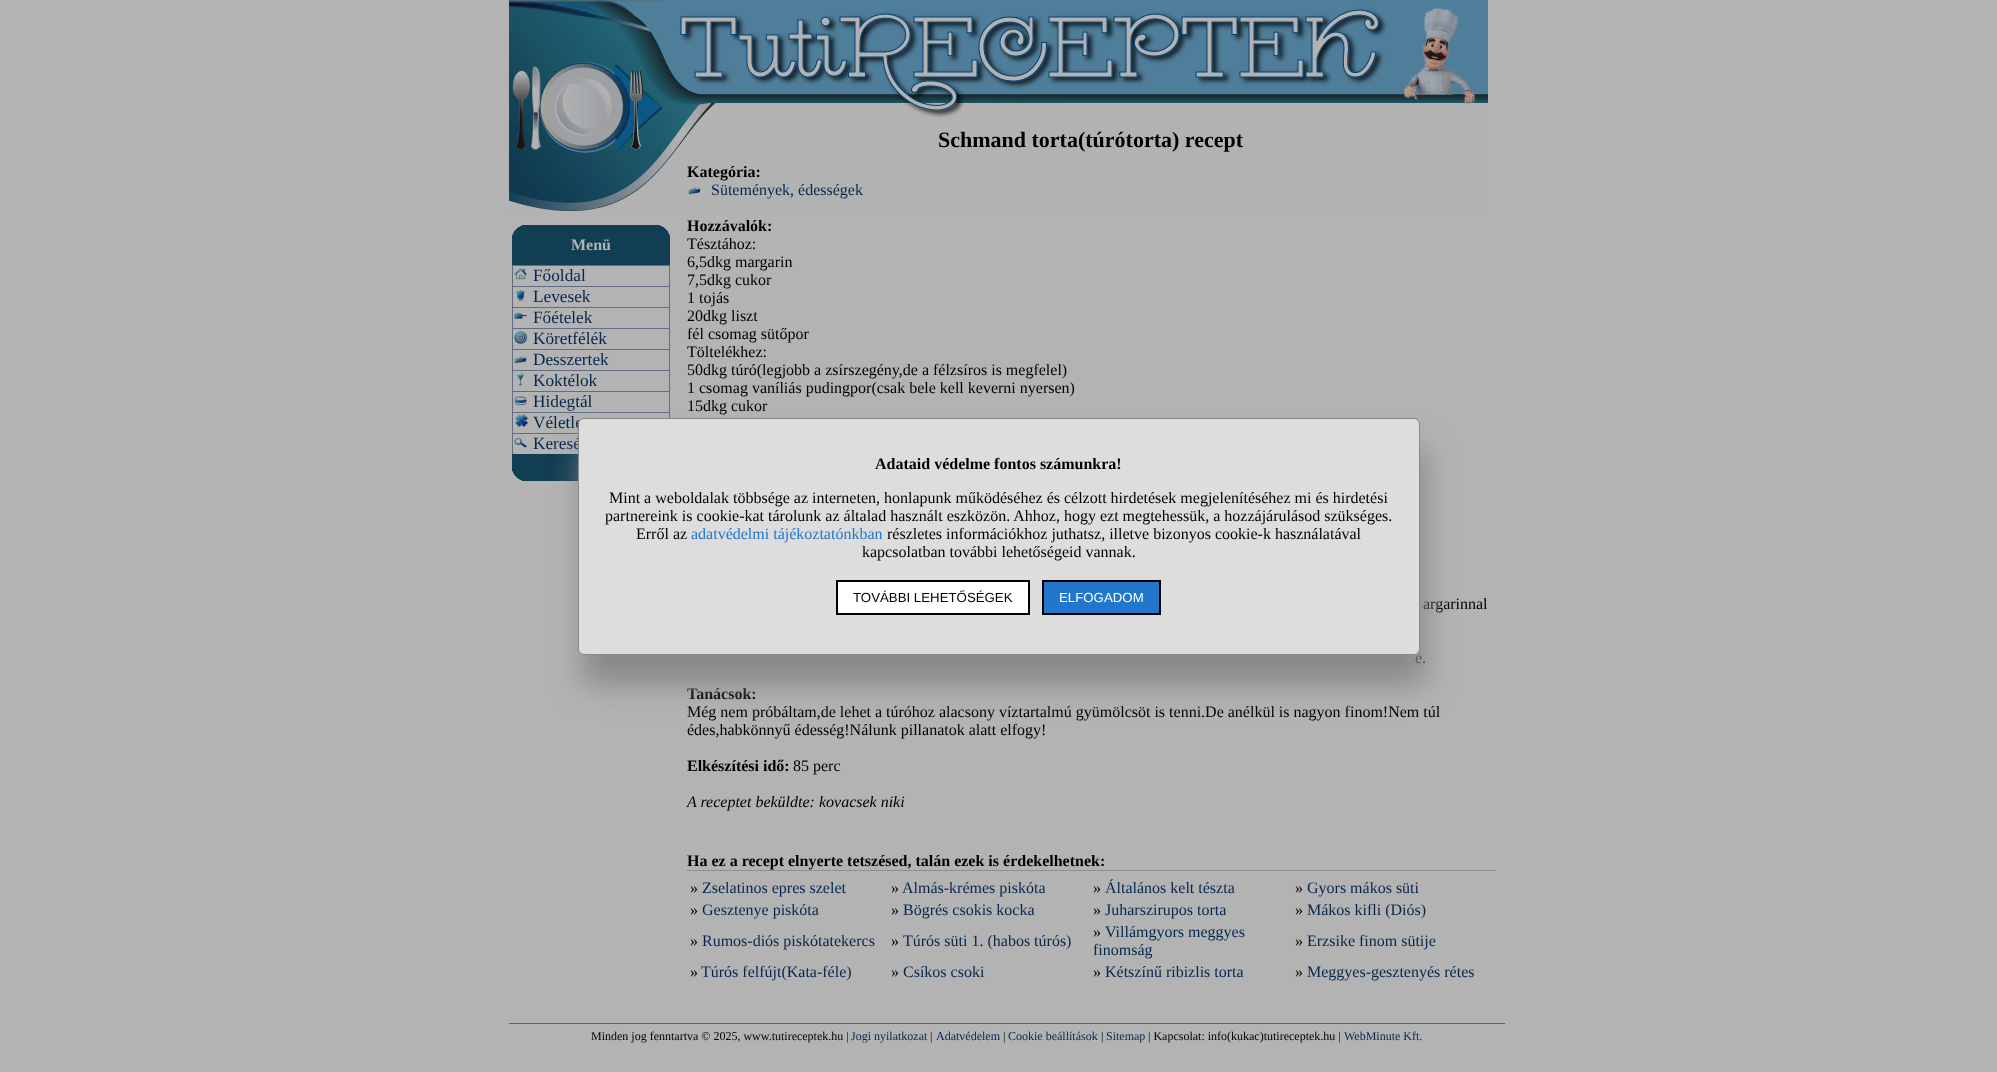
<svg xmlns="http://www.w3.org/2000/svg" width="1997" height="1072">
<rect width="100%" height="100%" fill="#b3b3b3"/>
<image x="509" y="0" width="979" height="211" href="media/1.png"/>
<image x="512" y="225" width="158" height="40" href="media/2.png"/>
<text x="571" y="250" style="font-family:Liberation Serif;font-size:16px;font-weight:bold;fill:#b3b3b3">Menü</text>
<rect x="512" y="265" width="158" height="1" fill="#626d85"/>
<rect x="669" y="265" width="1" height="21" fill="#626d85"/>
<rect x="512" y="265" width="1" height="21" fill="#626d85"/>
<image x="514" y="268" width="13" height="12" href="media/3.png"/>
<text x="533" y="281" style="font-family:Liberation Serif;font-size:17.25px;fill:#07264e">Főoldal</text>
<rect x="512" y="286" width="158" height="1" fill="#626d85"/>
<rect x="669" y="286" width="1" height="21" fill="#626d85"/>
<rect x="512" y="286" width="1" height="21" fill="#626d85"/>
<image x="516" y="290" width="9" height="11" href="media/4.png"/>
<text x="533" y="302" style="font-family:Liberation Serif;font-size:17.25px;fill:#07264e">Levesek</text>
<rect x="512" y="307" width="158" height="1" fill="#626d85"/>
<rect x="669" y="307" width="1" height="21" fill="#626d85"/>
<rect x="512" y="307" width="1" height="21" fill="#626d85"/>
<image x="514" y="312" width="13" height="7" href="media/5.png"/>
<text x="533" y="323" style="font-family:Liberation Serif;font-size:17.25px;fill:#07264e">Főételek</text>
<rect x="512" y="328" width="158" height="1" fill="#626d85"/>
<rect x="669" y="328" width="1" height="21" fill="#626d85"/>
<rect x="512" y="328" width="1" height="21" fill="#626d85"/>
<image x="514" y="331" width="13" height="13" href="media/6.png"/>
<text x="533" y="344" style="font-family:Liberation Serif;font-size:17.25px;fill:#07264e">Köretfélék</text>
<rect x="512" y="349" width="158" height="1" fill="#626d85"/>
<rect x="669" y="349" width="1" height="21" fill="#626d85"/>
<rect x="512" y="349" width="1" height="21" fill="#626d85"/>
<image x="514" y="356" width="13" height="8" href="media/7.png"/>
<text x="533" y="365" style="font-family:Liberation Serif;font-size:17.25px;fill:#07264e">Desszertek</text>
<rect x="512" y="370" width="158" height="1" fill="#626d85"/>
<rect x="669" y="370" width="1" height="21" fill="#626d85"/>
<rect x="512" y="370" width="1" height="21" fill="#626d85"/>
<image x="517" y="371" width="7" height="15" href="media/8.png"/>
<text x="533" y="386" style="font-family:Liberation Serif;font-size:17.25px;fill:#07264e">Koktélok</text>
<rect x="512" y="391" width="158" height="1" fill="#626d85"/>
<rect x="669" y="391" width="1" height="21" fill="#626d85"/>
<rect x="512" y="391" width="1" height="21" fill="#626d85"/>
<image x="514" y="396" width="13" height="10" href="media/9.png"/>
<text x="533" y="407" style="font-family:Liberation Serif;font-size:17.25px;fill:#07264e">Hidegtál</text>
<rect x="512" y="412" width="158" height="1" fill="#626d85"/>
<rect x="669" y="412" width="1" height="6" fill="#626d85"/>
<rect x="512" y="412" width="1" height="21" fill="#626d85"/>
<image x="515" y="414" width="13" height="13" href="media/10.png"/>
<text x="533" y="428" style="font-family:Liberation Serif;font-size:17.25px;fill:#07264e">Véletle</text>
<rect x="512" y="433" width="66" height="1" fill="#626d85"/>
<rect x="512" y="433" width="1" height="21" fill="#626d85"/>
<image x="514" y="437" width="13" height="11" href="media/11.png"/>
<text x="533" y="449" style="font-family:Liberation Serif;font-size:17.25px;fill:#07264e">Keresé</text>
<image x="512" y="454" width="66" height="27" href="media/12.png"/>
<text x="938" y="147" style="font-family:Liberation Serif;font-size:22px;font-weight:bold;fill:#000">Schmand torta(túrótorta) recept</text>
<text x="687" y="177" style="font-family:Liberation Serif;font-size:16px;font-weight:bold;fill:#000">Kategória:</text>
<image x="688" y="187" width="13" height="8" href="media/7.png"/>
<text x="711" y="195" style="font-family:Liberation Serif;font-size:16px;fill:#07264e">Sütemények, édességek</text>
<text x="687" y="231" style="font-family:Liberation Serif;font-size:16px;font-weight:bold;fill:#000">Hozzávalók:</text>
<text x="687" y="249" style="font-family:Liberation Serif;font-size:16px;fill:#000">Tésztához:</text>
<text x="687" y="267" style="font-family:Liberation Serif;font-size:16px;fill:#000">6,5dkg margarin</text>
<text x="687" y="285" style="font-family:Liberation Serif;font-size:16px;fill:#000">7,5dkg cukor</text>
<text x="687" y="303" style="font-family:Liberation Serif;font-size:16px;fill:#000">1 tojás</text>
<text x="687" y="321" style="font-family:Liberation Serif;font-size:16px;fill:#000">20dkg liszt</text>
<text x="687" y="339" style="font-family:Liberation Serif;font-size:16px;fill:#000">fél csomag sütőpor</text>
<text x="687" y="357" style="font-family:Liberation Serif;font-size:16px;fill:#000">Töltelékhez:</text>
<text x="687" y="375" style="font-family:Liberation Serif;font-size:16px;fill:#000">50dkg túró(legjobb a zsírszegény,de a félzsíros is megfelel)</text>
<text x="687" y="393" style="font-family:Liberation Serif;font-size:16px;fill:#000">1 csomag vaníliás pudingpor(csak bele kell keverni nyersen)</text>
<text x="687" y="411" style="font-family:Liberation Serif;font-size:16px;fill:#000">15dkg cukor</text>
<text x="1423" y="609" style="font-family:Liberation Serif;font-size:16px;fill:#000">argarinnal</text>
<text x="1415" y="663" style="font-family:Liberation Serif;font-size:16px;fill:#000">e.</text>
<text x="687" y="699" style="font-family:Liberation Serif;font-size:16px;font-weight:bold;fill:#000">Tanácsok:</text>
<text x="687" y="717" style="font-family:Liberation Serif;font-size:16px;fill:#000">Még nem próbáltam,de lehet a túróhoz alacsony víztartalmú gyümölcsöt is tenni.De anélkül is nagyon finom!Nem túl</text>
<text x="687" y="735" style="font-family:Liberation Serif;font-size:16px;fill:#000">édes,habkönnyű édesség!Nálunk pillanatok alatt elfogy!</text>
<text x="687" y="771" style="font-family:Liberation Serif;font-size:16px;font-weight:bold;fill:#000">Elkészítési idő:</text>
<text x="793" y="771" style="font-family:Liberation Serif;font-size:16px;fill:#000">85 perc</text>
<text x="687" y="807" style="font-family:Liberation Serif;font-size:16px;font-style:italic;fill:#000">A receptet beküldte: kovacsek niki</text>
<rect x="687" y="870" width="809" height="1" fill="#8f8f8f"/>
<text x="687" y="866" style="font-family:Liberation Serif;font-size:16px;font-weight:bold;fill:#000">Ha ez a recept elnyerte tetszésed, talán ezek is érdekelhetnek:</text>
<text x="690" y="893" style="font-family:Liberation Serif;font-size:16px;fill:#000">»</text>
<text x="702" y="893" style="font-family:Liberation Serif;font-size:16px;fill:#07264e">Zselatinos epres szelet</text>
<text x="891" y="893" style="font-family:Liberation Serif;font-size:16px;fill:#000">»</text>
<text x="902" y="893" style="font-family:Liberation Serif;font-size:16px;fill:#07264e">Almás-krémes piskóta</text>
<text x="1093" y="893" style="font-family:Liberation Serif;font-size:16px;fill:#000">»</text>
<text x="1105" y="893" style="font-family:Liberation Serif;font-size:16px;fill:#07264e">Általános kelt tészta</text>
<text x="1295" y="893" style="font-family:Liberation Serif;font-size:16px;fill:#000">»</text>
<text x="1307" y="893" style="font-family:Liberation Serif;font-size:16px;fill:#07264e">Gyors mákos süti</text>
<text x="690" y="915" style="font-family:Liberation Serif;font-size:16px;fill:#000">»</text>
<text x="702" y="915" style="font-family:Liberation Serif;font-size:16px;fill:#07264e">Gesztenye piskóta</text>
<text x="891" y="915" style="font-family:Liberation Serif;font-size:16px;fill:#000">»</text>
<text x="903" y="915" style="font-family:Liberation Serif;font-size:16px;fill:#07264e">Bögrés csokis kocka</text>
<text x="1093" y="915" style="font-family:Liberation Serif;font-size:16px;fill:#000">»</text>
<text x="1105" y="915" style="font-family:Liberation Serif;font-size:16px;fill:#07264e">Juharszirupos torta</text>
<text x="1295" y="915" style="font-family:Liberation Serif;font-size:16px;fill:#000">»</text>
<text x="1307" y="915" style="font-family:Liberation Serif;font-size:16px;fill:#07264e">Mákos kifli (Diós)</text>
<text x="690" y="946" style="font-family:Liberation Serif;font-size:16px;fill:#000">»</text>
<text x="702" y="946" style="font-family:Liberation Serif;font-size:16px;fill:#07264e">Rumos-diós piskótatekercs</text>
<text x="891" y="946" style="font-family:Liberation Serif;font-size:16px;fill:#000">»</text>
<text x="903" y="946" style="font-family:Liberation Serif;font-size:16px;fill:#07264e">Túrós süti 1. (habos túrós)</text>
<text x="1093" y="937" style="font-family:Liberation Serif;font-size:16px;fill:#000">»</text>
<text x="1105" y="937" style="font-family:Liberation Serif;font-size:16px;fill:#07264e">Villámgyors meggyes</text>
<text x="1093" y="955" style="font-family:Liberation Serif;font-size:16px;fill:#07264e">finomság</text>
<text x="1295" y="946" style="font-family:Liberation Serif;font-size:16px;fill:#000">»</text>
<text x="1307" y="946" style="font-family:Liberation Serif;font-size:16px;fill:#07264e">Erzsike finom sütije</text>
<text x="690" y="977" style="font-family:Liberation Serif;font-size:16px;fill:#000">»</text>
<text x="701" y="977" style="font-family:Liberation Serif;font-size:16px;fill:#07264e">Túrós felfújt(Kata-féle)</text>
<text x="891" y="977" style="font-family:Liberation Serif;font-size:16px;fill:#000">»</text>
<text x="903" y="977" style="font-family:Liberation Serif;font-size:16px;fill:#07264e">Csíkos csoki</text>
<text x="1093" y="977" style="font-family:Liberation Serif;font-size:16px;fill:#000">»</text>
<text x="1105" y="977" style="font-family:Liberation Serif;font-size:16px;fill:#07264e">Kétszínű ribizlis torta</text>
<text x="1295" y="977" style="font-family:Liberation Serif;font-size:16px;fill:#000">»</text>
<text x="1307" y="977" style="font-family:Liberation Serif;font-size:16px;fill:#07264e">Meggyes-gesztenyés rétes</text>
<rect x="509" y="1023" width="996" height="1" fill="#5f5f5f"/>
<text x="591" y="1040" style="font-family:Liberation Serif;font-size:12px;fill:#000">Minden jog fenntartva © 2025, www.tutireceptek.hu |</text>
<text x="851" y="1040" style="font-family:Liberation Serif;font-size:12px;fill:#07264e">Jogi nyilatkozat</text>
<text x="930" y="1040" style="font-family:Liberation Serif;font-size:12px;fill:#000">|</text>
<text x="936" y="1040" style="font-family:Liberation Serif;font-size:12px;fill:#07264e">Adatvédelem</text>
<text x="1003" y="1040" style="font-family:Liberation Serif;font-size:12px;fill:#000">|</text>
<text x="1008" y="1040" style="font-family:Liberation Serif;font-size:12px;fill:#07264e">Cookie beállítások</text>
<text x="1101" y="1040" style="font-family:Liberation Serif;font-size:12px;fill:#000">|</text>
<text x="1106" y="1040" style="font-family:Liberation Serif;font-size:12px;fill:#07264e">Sitemap</text>
<text x="1148" y="1040" style="font-family:Liberation Serif;font-size:12px;fill:#000">| Kapcsolat: info(kukac)tutireceptek.hu |</text>
<text x="1344" y="1040" style="font-family:Liberation Serif;font-size:12px;fill:#07264e">WebMinute Kft.</text>
<rect x="583" y="448" width="842" height="237" rx="6" fill="#888" filter="blur(15px)"/>
<rect x="578.5" y="418.5" width="841" height="236" rx="5.5" fill="#ddd" stroke="#888"/>
<text x="875" y="469" style="font-family:Liberation Serif;font-size:16px;font-weight:bold;fill:#000">Adataid védelme fontos számunkra!</text>
<text x="609" y="503" style="font-family:Liberation Serif;font-size:16px;fill:#000">Mint a weboldalak többsége az interneten, honlapunk működéséhez és célzott hirdetések megjelenítéséhez mi és hirdetési</text>
<text x="605" y="521" style="font-family:Liberation Serif;font-size:16px;fill:#000">partnereink is cookie-kat tárolunk az általad használt eszközön. Ahhoz, hogy ezt megtehessük, a hozzájárulásod szükséges.</text>
<text x="636" y="539" style="font-family:Liberation Serif;font-size:16px;fill:#000">Erről az</text>
<text x="691" y="539" style="font-family:Liberation Serif;font-size:16px;fill:#27c">adatvédelmi tájékoztatónkban</text>
<text x="887" y="539" style="font-family:Liberation Serif;font-size:16px;fill:#000">részletes információkhoz juthatsz, illetve bizonyos cookie-k használatával</text>
<text x="862" y="557" style="font-family:Liberation Serif;font-size:16px;fill:#000">kapcsolatban további lehetőségeid vannak.</text>
<rect x="837" y="581" width="192" height="33" fill="#fff" stroke="#000" stroke-width="2"/>
<text x="853" y="602" style="font-family:Liberation Sans;font-size:13.25px;fill:#000">TOVÁBBI LEHETŐSÉGEK</text>
<rect x="1043" y="581" width="117" height="33" fill="#27c" stroke="#000" stroke-width="2"/>
<text x="1059" y="602" style="font-family:Liberation Sans;font-size:13.25px;fill:#fff">ELFOGADOM</text>
</svg>
